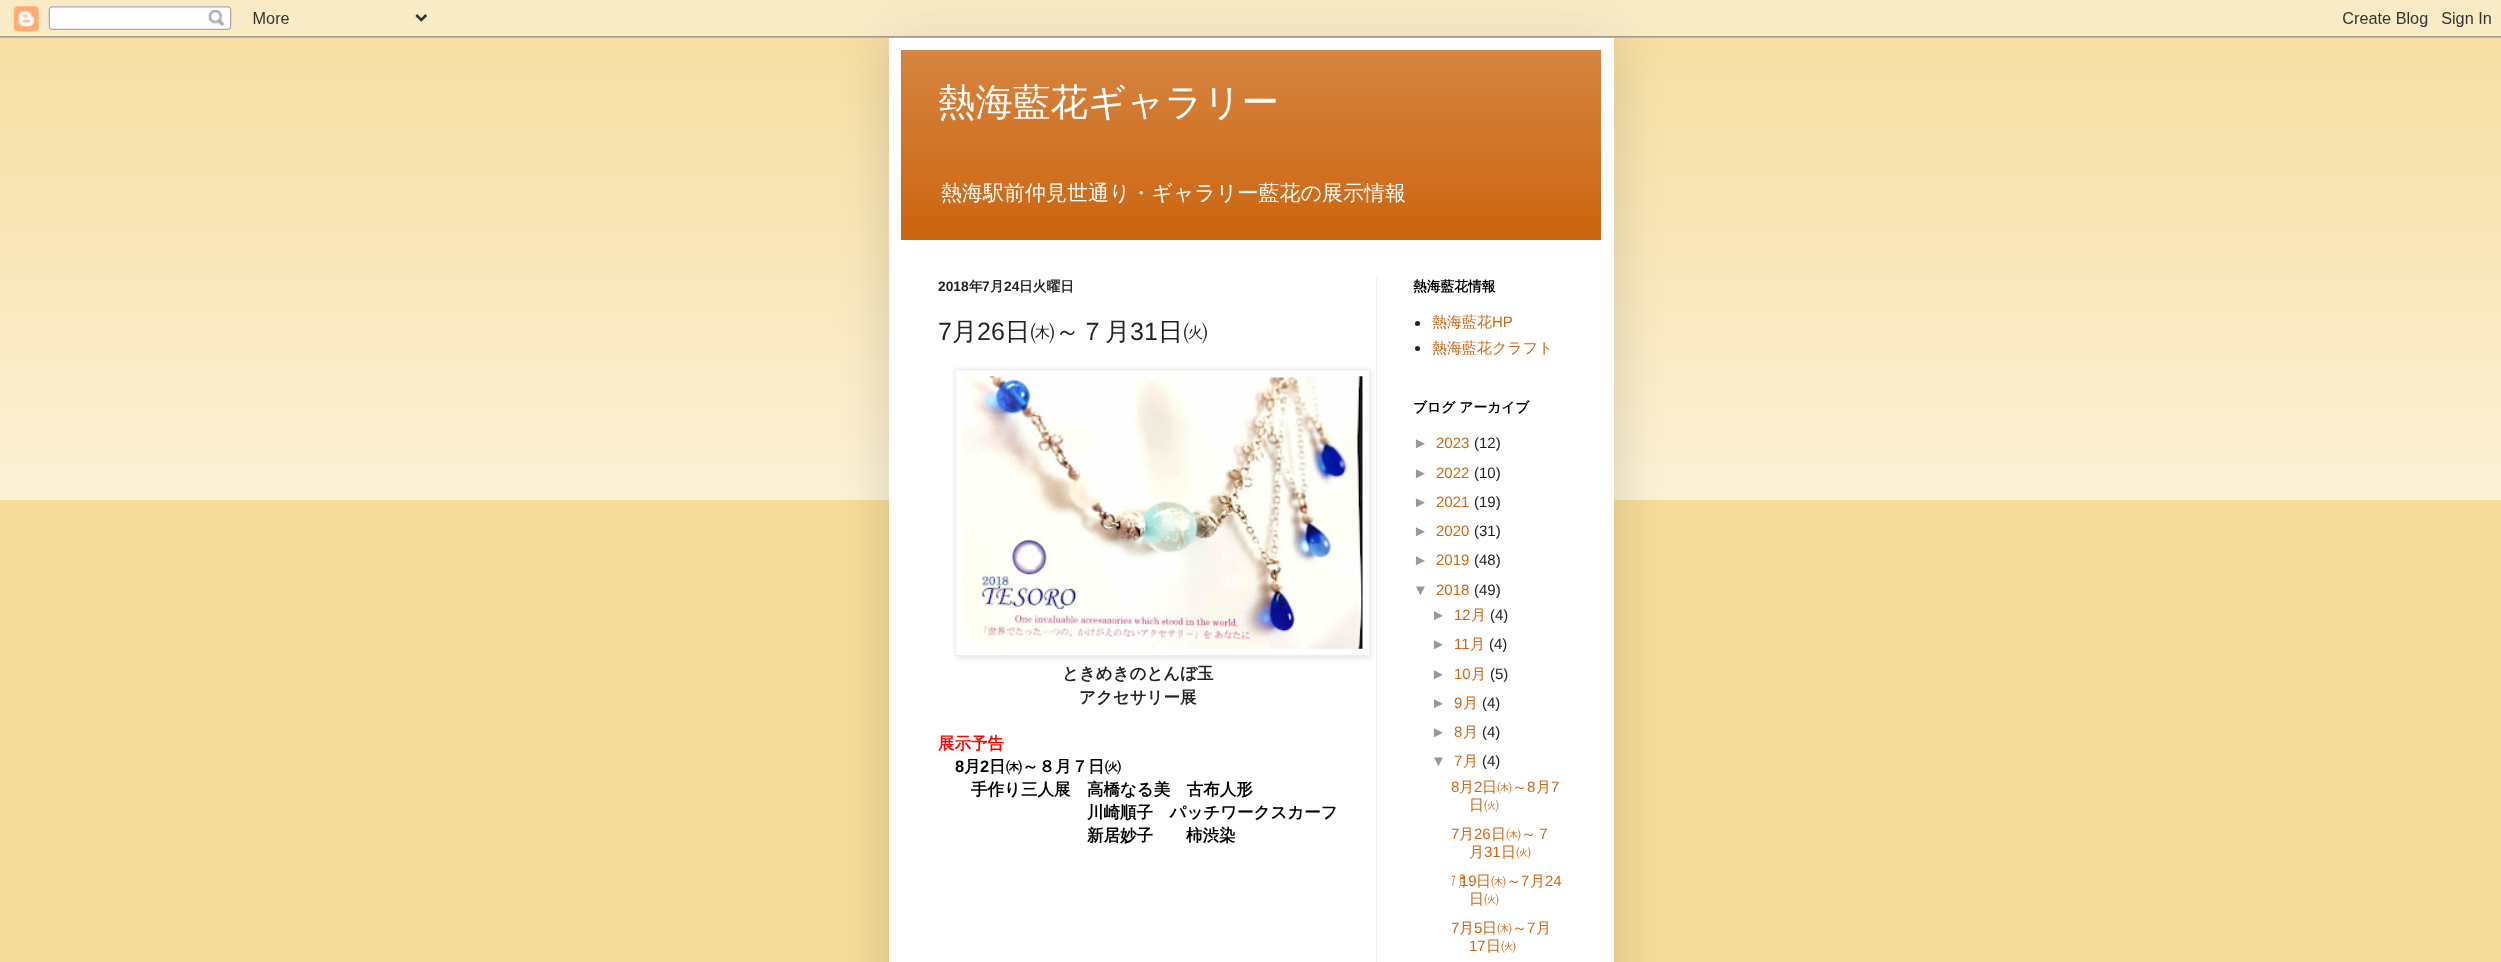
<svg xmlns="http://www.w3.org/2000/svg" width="2501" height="962">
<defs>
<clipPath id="clip1"><path d="M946 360h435v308h-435zm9 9h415v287h-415z" clip-rule="evenodd"/></clipPath>
</defs>
<rect width="100%" height="100%" fill="#f6dc99"/>
<image x="0" y="0" width="2501" height="500" href="media/1.png"/>
<rect x="889" y="38" width="725" height="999" fill="#00000026" filter="blur(25px)"/>
<image x="0" y="0" width="2501" height="38" href="media/2.png"/>
<rect x="889" y="38" width="725" height="924" fill="#fff"/>
<rect x="901" y="50" width="700" height="190" fill="#c61"/>
<image x="901" y="50" width="700" height="166" href="media/3.png"/>
<text x="938" y="115" style="font-family:WenQuanYi Zen Hei;font-size:37.5px;font-weight:500;fill:#fff">熱海藍花ギャラリー</text>
<text x="941" y="200" style="font-family:WenQuanYi Zen Hei;font-size:21px;font-weight:500;fill:#fff">熱海駅前仲見世通り・ギャラリー藍花の展示情報</text>
<rect x="1376" y="278" width="1" height="684" fill="#eee"/>
<text x="938" y="291" style="font-family:Liberation Sans;font-size:13.75px;font-weight:bold;fill:#222">2018</text>
<text x="969" y="291" style="font-family:WenQuanYi Zen Hei;font-size:13.75px;font-weight:bold;fill:#222">年</text>
<text x="982" y="291" style="font-family:Liberation Sans;font-size:13.75px;font-weight:bold;fill:#222">7</text>
<text x="990" y="291" style="font-family:WenQuanYi Zen Hei;font-size:13.75px;font-weight:bold;fill:#222">月</text>
<text x="1004" y="291" style="font-family:Liberation Sans;font-size:13.75px;font-weight:bold;fill:#222">24</text>
<text x="1019" y="291" style="font-family:WenQuanYi Zen Hei;font-size:13.75px;font-weight:bold;fill:#222">日火曜日</text>
<text x="938" y="340" style="font-family:Liberation Sans;font-size:25px;fill:#222">7</text>
<text x="952" y="340" style="font-family:WenQuanYi Zen Hei;font-size:25px;font-weight:500;fill:#222">月</text>
<text x="977" y="340" style="font-family:Liberation Sans;font-size:25px;fill:#222">26</text>
<text x="1005" y="340" style="font-family:WenQuanYi Zen Hei;font-size:25px;font-weight:500;fill:#222">日㈭～７月</text>
<text x="1130" y="340" style="font-family:Liberation Sans;font-size:25px;fill:#222">31</text>
<text x="1158" y="340" style="font-family:WenQuanYi Zen Hei;font-size:25px;font-weight:500;fill:#222">日㈫</text>
<g clip-path="url(#clip1)">
<rect x="956" y="370" width="415" height="288" fill="#0000001a" filter="blur(3px)"/>
</g>
<rect x="955.5" y="369.5" width="414" height="286" fill="none" stroke="#eee"/>
<image x="962" y="376" width="401" height="273" href="media/4.png"/>
<text x="1062" y="679" style="font-family:WenQuanYi Zen Hei;font-size:16.5px;font-weight:bold;fill:#222">ときめきのとんぼ玉</text>
<text x="1079" y="703" style="font-family:WenQuanYi Zen Hei;font-size:16.5px;font-weight:bold;fill:#222">アクセサリー展</text>
<text x="938" y="749" style="font-family:WenQuanYi Zen Hei;font-size:16.5px;font-weight:bold;fill:#f00">展示予告</text>
<text x="955" y="772" style="font-family:Liberation Sans;font-size:16.5px;font-weight:bold;fill:#000">8</text>
<text x="964" y="772" style="font-family:WenQuanYi Zen Hei;font-size:16.5px;font-weight:bold;fill:#000">月</text>
<text x="980" y="772" style="font-family:Liberation Sans;font-size:16.5px;font-weight:bold;fill:#000">2</text>
<text x="989" y="772" style="font-family:WenQuanYi Zen Hei;font-size:16.5px;font-weight:bold;fill:#000">日㈭～８月７日㈫</text>
<text x="971" y="795" style="font-family:WenQuanYi Zen Hei;font-size:16.5px;font-weight:bold;fill:#000">手作り三人展　高橋なる美　古布人形</text>
<text x="1087" y="818" style="font-family:WenQuanYi Zen Hei;font-size:16.5px;font-weight:bold;fill:#000">川崎順子　パッチワークスカーフ</text>
<text x="1087" y="841" style="font-family:WenQuanYi Zen Hei;font-size:16.5px;font-weight:bold;fill:#000">新居妙子　　柿渋染</text>
<text x="1413" y="291" style="font-family:WenQuanYi Zen Hei;font-size:13.75px;font-weight:bold;fill:#000">熱海藍花情報</text>
<circle cx="1417.5" cy="323.5" r="2.5" fill="#222"/>
<text x="1432" y="327" style="font-family:WenQuanYi Zen Hei;font-size:15px;font-weight:500;fill:#c61">熱海藍花</text>
<text x="1492" y="327" style="font-family:Liberation Sans;font-size:15px;fill:#c61">HP</text>
<circle cx="1417.5" cy="348.5" r="2.5" fill="#222"/>
<text x="1432" y="353" style="font-family:WenQuanYi Zen Hei;font-size:15px;font-weight:500;fill:#c61">熱海藍花クラフト</text>
<text x="1413" y="412" style="font-family:WenQuanYi Zen Hei;font-size:13.75px;font-weight:bold;fill:#000">ブログ アーカイブ</text>
<text x="1413" y="448" style="font-family:Liberation Sans;font-size:15px;fill:#999">►</text>
<text x="1436" y="448" style="font-family:Liberation Sans;font-size:15px;fill:#c61">2023</text>
<text x="1474" y="448" style="font-family:Liberation Sans;font-size:15px;fill:#222">(12)</text>
<text x="1413" y="478" style="font-family:Liberation Sans;font-size:15px;fill:#999">►</text>
<text x="1436" y="478" style="font-family:Liberation Sans;font-size:15px;fill:#c61">2022</text>
<text x="1474" y="478" style="font-family:Liberation Sans;font-size:15px;fill:#222">(10)</text>
<text x="1413" y="507" style="font-family:Liberation Sans;font-size:15px;fill:#999">►</text>
<text x="1436" y="507" style="font-family:Liberation Sans;font-size:15px;fill:#c61">2021</text>
<text x="1474" y="507" style="font-family:Liberation Sans;font-size:15px;fill:#222">(19)</text>
<text x="1413" y="536" style="font-family:Liberation Sans;font-size:15px;fill:#999">►</text>
<text x="1436" y="536" style="font-family:Liberation Sans;font-size:15px;fill:#c61">2020</text>
<text x="1474" y="536" style="font-family:Liberation Sans;font-size:15px;fill:#222">(31)</text>
<text x="1413" y="565" style="font-family:Liberation Sans;font-size:15px;fill:#999">►</text>
<text x="1436" y="565" style="font-family:Liberation Sans;font-size:15px;fill:#c61">2019</text>
<text x="1474" y="565" style="font-family:Liberation Sans;font-size:15px;fill:#222">(48)</text>
<text x="1413" y="595" style="font-family:Liberation Sans;font-size:15px;fill:#999">▼</text>
<text x="1436" y="595" style="font-family:Liberation Sans;font-size:15px;fill:#c61">2018</text>
<text x="1474" y="595" style="font-family:Liberation Sans;font-size:15px;fill:#222">(49)</text>
<text x="1431" y="620" style="font-family:Liberation Sans;font-size:15px;fill:#999">►</text>
<text x="1454" y="620" style="font-family:Liberation Sans;font-size:15px;fill:#c61">12</text>
<text x="1471" y="620" style="font-family:WenQuanYi Zen Hei;font-size:15px;font-weight:500;fill:#c61">月</text>
<text x="1490" y="620" style="font-family:Liberation Sans;font-size:15px;fill:#222">(4)</text>
<text x="1431" y="649" style="font-family:Liberation Sans;font-size:15px;fill:#999">►</text>
<text x="1454" y="649" style="font-family:Liberation Sans;font-size:15px;fill:#c61">11</text>
<text x="1470" y="649" style="font-family:WenQuanYi Zen Hei;font-size:15px;font-weight:500;fill:#c61">月</text>
<text x="1489" y="649" style="font-family:Liberation Sans;font-size:15px;fill:#222">(4)</text>
<text x="1431" y="679" style="font-family:Liberation Sans;font-size:15px;fill:#999">►</text>
<text x="1454" y="679" style="font-family:Liberation Sans;font-size:15px;fill:#c61">10</text>
<text x="1471" y="679" style="font-family:WenQuanYi Zen Hei;font-size:15px;font-weight:500;fill:#c61">月</text>
<text x="1490" y="679" style="font-family:Liberation Sans;font-size:15px;fill:#222">(5)</text>
<text x="1431" y="708" style="font-family:Liberation Sans;font-size:15px;fill:#999">►</text>
<text x="1454" y="708" style="font-family:Liberation Sans;font-size:15px;fill:#c61">9</text>
<text x="1463" y="708" style="font-family:WenQuanYi Zen Hei;font-size:15px;font-weight:500;fill:#c61">月</text>
<text x="1482" y="708" style="font-family:Liberation Sans;font-size:15px;fill:#222">(4)</text>
<text x="1431" y="737" style="font-family:Liberation Sans;font-size:15px;fill:#999">►</text>
<text x="1454" y="737" style="font-family:Liberation Sans;font-size:15px;fill:#c61">8</text>
<text x="1463" y="737" style="font-family:WenQuanYi Zen Hei;font-size:15px;font-weight:500;fill:#c61">月</text>
<text x="1482" y="737" style="font-family:Liberation Sans;font-size:15px;fill:#222">(4)</text>
<text x="1431" y="766" style="font-family:Liberation Sans;font-size:15px;fill:#999">▼</text>
<text x="1454" y="766" style="font-family:Liberation Sans;font-size:15px;fill:#c61">7</text>
<text x="1463" y="766" style="font-family:WenQuanYi Zen Hei;font-size:15px;font-weight:500;fill:#c61">月</text>
<text x="1482" y="766" style="font-family:Liberation Sans;font-size:15px;fill:#222">(4)</text>
<text x="1451" y="792" style="font-family:Liberation Sans;font-size:15px;fill:#c61">8</text>
<text x="1459" y="792" style="font-family:WenQuanYi Zen Hei;font-size:15px;font-weight:500;fill:#c61">月</text>
<text x="1474" y="792" style="font-family:Liberation Sans;font-size:15px;fill:#c61">2</text>
<text x="1482" y="792" style="font-family:WenQuanYi Zen Hei;font-size:15px;font-weight:500;fill:#c61">日㈭～</text>
<text x="1527" y="792" style="font-family:Liberation Sans;font-size:15px;fill:#c61">8</text>
<text x="1536" y="792" style="font-family:WenQuanYi Zen Hei;font-size:15px;font-weight:500;fill:#c61">月</text>
<text x="1551" y="792" style="font-family:Liberation Sans;font-size:15px;fill:#c61">7</text>
<text x="1469" y="810" style="font-family:WenQuanYi Zen Hei;font-size:15px;font-weight:500;fill:#c61">日㈫</text>
<text x="1451" y="839" style="font-family:Liberation Sans;font-size:15px;fill:#c61">7</text>
<text x="1459" y="839" style="font-family:WenQuanYi Zen Hei;font-size:15px;font-weight:500;fill:#c61">月</text>
<text x="1474" y="839" style="font-family:Liberation Sans;font-size:15px;fill:#c61">26</text>
<text x="1491" y="839" style="font-family:WenQuanYi Zen Hei;font-size:15px;font-weight:500;fill:#c61">日㈭～７</text>
<text x="1469" y="857" style="font-family:WenQuanYi Zen Hei;font-size:15px;font-weight:500;fill:#c61">月</text>
<text x="1484" y="857" style="font-family:Liberation Sans;font-size:15px;fill:#c61">31</text>
<text x="1501" y="857" style="font-family:WenQuanYi Zen Hei;font-size:15px;font-weight:500;fill:#c61">日㈫</text>
<text x="1451" y="886" style="font-family:WenQuanYi Zen Hei;font-size:15px;font-weight:500;fill:#c61">㋆</text>
<text x="1460" y="886" style="font-family:Liberation Sans;font-size:15px;fill:#c61">19</text>
<text x="1476" y="886" style="font-family:WenQuanYi Zen Hei;font-size:15px;font-weight:500;fill:#c61">日㈭～</text>
<text x="1521" y="886" style="font-family:Liberation Sans;font-size:15px;fill:#c61">7</text>
<text x="1530" y="886" style="font-family:WenQuanYi Zen Hei;font-size:15px;font-weight:500;fill:#c61">月</text>
<text x="1545" y="886" style="font-family:Liberation Sans;font-size:15px;fill:#c61">24</text>
<text x="1469" y="904" style="font-family:WenQuanYi Zen Hei;font-size:15px;font-weight:500;fill:#c61">日㈫</text>
<text x="1451" y="933" style="font-family:Liberation Sans;font-size:15px;fill:#c61">7</text>
<text x="1459" y="933" style="font-family:WenQuanYi Zen Hei;font-size:15px;font-weight:500;fill:#c61">月</text>
<text x="1474" y="933" style="font-family:Liberation Sans;font-size:15px;fill:#c61">5</text>
<text x="1482" y="933" style="font-family:WenQuanYi Zen Hei;font-size:15px;font-weight:500;fill:#c61">日㈭～</text>
<text x="1527" y="933" style="font-family:Liberation Sans;font-size:15px;fill:#c61">7</text>
<text x="1536" y="933" style="font-family:WenQuanYi Zen Hei;font-size:15px;font-weight:500;fill:#c61">月</text>
<text x="1469" y="951" style="font-family:Liberation Sans;font-size:15px;fill:#c61">17</text>
<text x="1486" y="951" style="font-family:WenQuanYi Zen Hei;font-size:15px;font-weight:500;fill:#c61">日㈫</text>
</svg>
